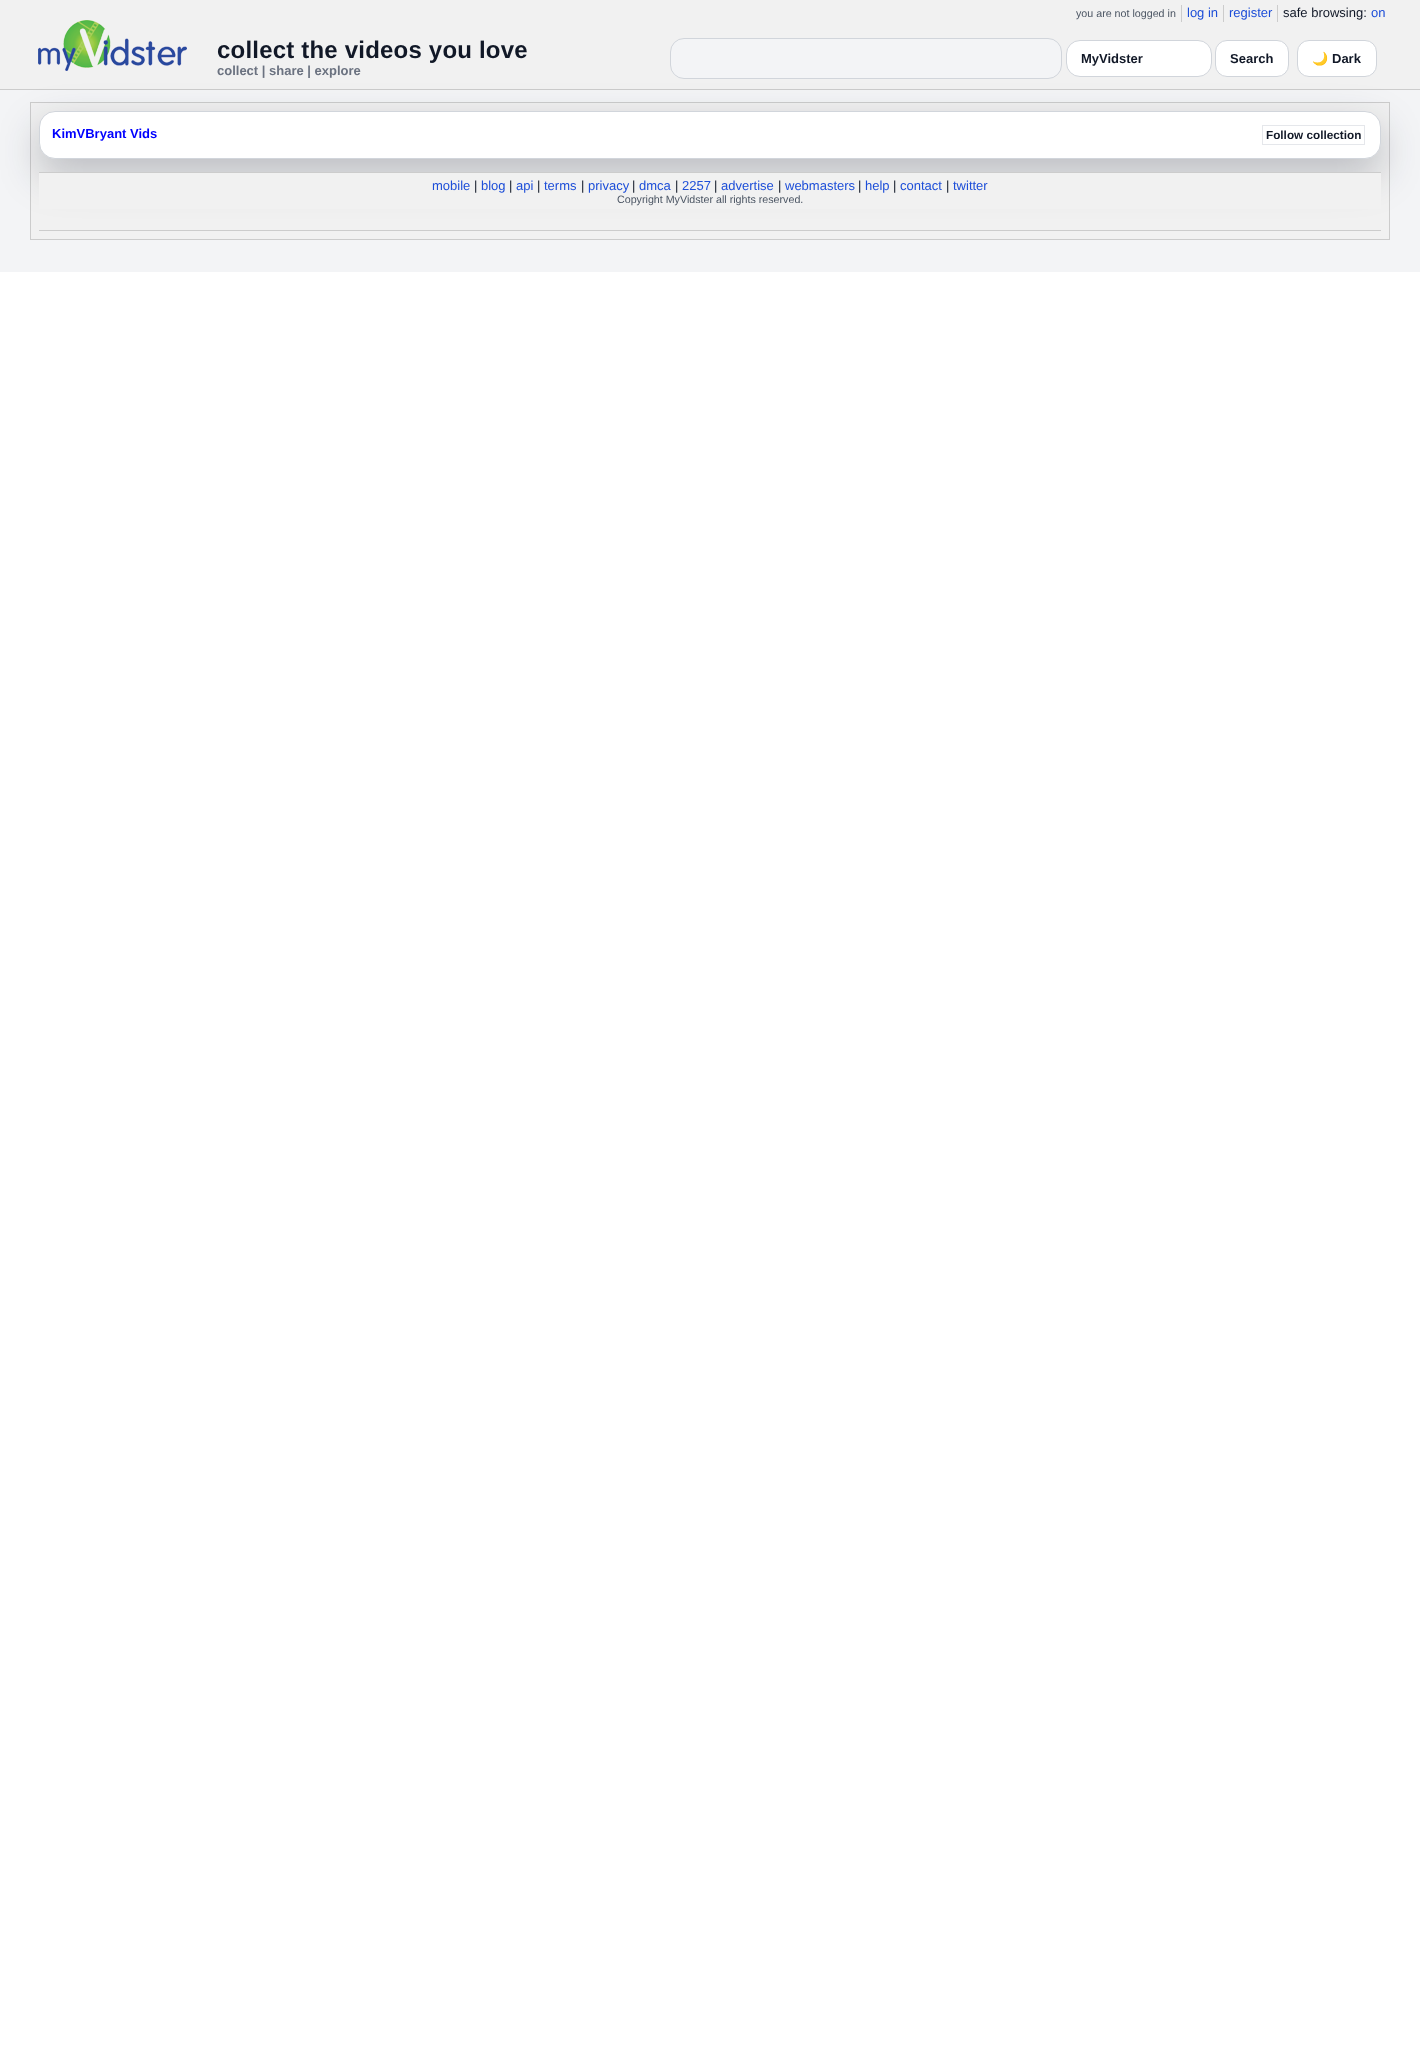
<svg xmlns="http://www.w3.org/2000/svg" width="1420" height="2050">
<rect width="100%" height="100%" fill="#fff"/>
<rect width="1420" height="89" fill="#f1f1f1"/>
<rect y="89" width="1420" height="1" fill="#ccc"/>
<rect y="90" width="1420" height="182" fill="#f3f4f6"/>
<rect x="30.5" y="102.5" width="1359" height="137" fill="#f1f1f1" stroke="#ccc"/>
<rect x="39" y="127" width="1342" height="48" rx="16" fill="#0f172a40" filter="blur(20px)"/>
<image x="38" y="20" width="149" height="51" href="media/1.png"/>
<rect x="1181" y="5" width="1" height="17" fill="#ccc"/>
<text x="1076" y="17" style="font-family:Liberation Sans;font-size:10.7px;fill:#4b5563">you are not logged in</text>
<rect x="1223" y="5" width="1" height="17" fill="#ccc"/>
<text x="1187" y="17" style="font-family:Liberation Sans;font-size:13px;fill:#1d4ed8">log in</text>
<rect x="1277" y="5" width="1" height="17" fill="#ccc"/>
<text x="1229" y="17" style="font-family:Liberation Sans;font-size:13px;fill:#1d4ed8">register</text>
<text x="1283" y="17" style="font-family:Liberation Sans;font-size:13px;fill:#111827">safe browsing:</text>
<text x="1371" y="17" style="font-family:Liberation Sans;font-size:13px;fill:#1d4ed8">on</text>
<text x="217" y="58" style="font-family:Liberation Sans;font-size:24px;font-weight:bold;letter-spacing:0.2px;fill:#111827">collect the videos you love</text>
<text x="217" y="75" style="font-family:Liberation Sans;font-size:13px;font-weight:bold;fill:#6b7280">collect | share | explore</text>
<rect x="670.5" y="38.5" width="391" height="40" rx="13.5" fill="#f3f4f6" stroke="#d1d5db"/>
<rect x="1066.5" y="40.5" width="145" height="36" rx="13.5" fill="#fff" stroke="#d1d5db"/>
<text x="1081" y="63" style="font-family:Liberation Sans;font-size:13px;font-weight:bold;fill:#111827">MyVidster</text>
<rect x="1215.5" y="40.5" width="73" height="36" rx="11.5" fill="#fff" stroke="#d1d5db"/>
<text x="1230" y="63" style="font-family:Liberation Sans;font-size:13px;font-weight:bold;fill:#111827">Search</text>
<rect x="1297.5" y="40.5" width="79" height="36" rx="11.5" fill="#fff" stroke="#d1d5db"/>
<text x="1312" y="63" style="font-family:Noto Color Emoji;font-size:13px;font-weight:bold;fill:#111827">🌙</text>
<text x="1332" y="63" style="font-family:Liberation Sans;font-size:13px;font-weight:bold;fill:#111827">Dark</text>
<rect x="39.5" y="111.5" width="1341" height="47" rx="15.5" fill="#fff" stroke="#d1d5db"/>
<text x="52" y="138" style="font-family:Liberation Sans;font-size:13px;font-weight:bold;fill:#00f">KimVBryant Vids</text>
<rect x="1262.5" y="125.5" width="102" height="19" fill="none" stroke="#e5e7eb"/>
<text x="1266" y="139" style="font-family:Liberation Sans;font-size:11.75px;font-weight:bold;fill:#111827">Follow collection</text>
<rect x="39" y="173" width="1342" height="36" fill="#f1f1f1"/>
<rect x="39" y="230" width="1342" height="1" fill="#ccc"/>
<rect x="39" y="172" width="1342" height="1" fill="#ccc"/>
<text x="432" y="190" style="font-family:Liberation Sans;font-size:13px;fill:#1d4ed8">mobile</text>
<text x="474" y="190" style="font-family:Liberation Sans;font-size:13px;fill:#111827">|</text>
<text x="481" y="190" style="font-family:Liberation Sans;font-size:13px;fill:#1d4ed8">blog</text>
<text x="509" y="190" style="font-family:Liberation Sans;font-size:13px;fill:#111827">|</text>
<text x="516" y="190" style="font-family:Liberation Sans;font-size:13px;fill:#1d4ed8">api</text>
<text x="537" y="190" style="font-family:Liberation Sans;font-size:13px;fill:#111827">|</text>
<text x="544" y="190" style="font-family:Liberation Sans;font-size:13px;fill:#1d4ed8">terms</text>
<text x="581" y="190" style="font-family:Liberation Sans;font-size:13px;fill:#111827">|</text>
<text x="588" y="190" style="font-family:Liberation Sans;font-size:13px;fill:#1d4ed8">privacy</text>
<text x="632" y="190" style="font-family:Liberation Sans;font-size:13px;fill:#111827">|</text>
<text x="639" y="190" style="font-family:Liberation Sans;font-size:13px;fill:#1d4ed8">dmca</text>
<text x="675" y="190" style="font-family:Liberation Sans;font-size:13px;fill:#111827">|</text>
<text x="682" y="190" style="font-family:Liberation Sans;font-size:13px;fill:#1d4ed8">2257</text>
<text x="714" y="190" style="font-family:Liberation Sans;font-size:13px;fill:#111827">|</text>
<text x="721" y="190" style="font-family:Liberation Sans;font-size:13px;fill:#1d4ed8">advertise</text>
<text x="778" y="190" style="font-family:Liberation Sans;font-size:13px;fill:#111827">|</text>
<text x="785" y="190" style="font-family:Liberation Sans;font-size:13px;fill:#1d4ed8">webmasters</text>
<text x="858" y="190" style="font-family:Liberation Sans;font-size:13px;fill:#111827">|</text>
<text x="865" y="190" style="font-family:Liberation Sans;font-size:13px;fill:#1d4ed8">help</text>
<text x="893" y="190" style="font-family:Liberation Sans;font-size:13px;fill:#111827">|</text>
<text x="900" y="190" style="font-family:Liberation Sans;font-size:13px;fill:#1d4ed8">contact</text>
<text x="946" y="190" style="font-family:Liberation Sans;font-size:13px;fill:#111827">|</text>
<text x="953" y="190" style="font-family:Liberation Sans;font-size:13px;fill:#1d4ed8">twitter</text>
<text x="617" y="203" style="font-family:Liberation Sans;font-size:10.7px;fill:#4b5563">Copyright MyVidster all rights reserved.</text>
</svg>
